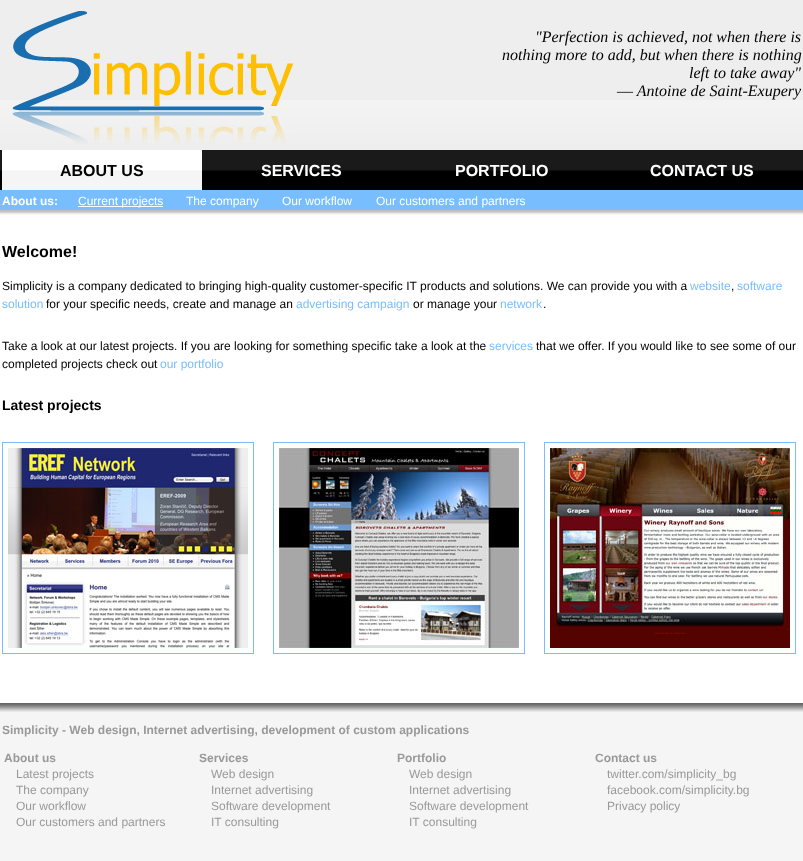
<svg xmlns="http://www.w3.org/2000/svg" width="803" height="861">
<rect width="100%" height="100%" fill="#f5f5f5"/>
<image x="0" y="0" width="803" height="150" href="media/1.png"/>
<image x="10" y="8" width="288" height="136" href="media/2.png"/>
<text x="535" y="42" style="font-family:Liberation Serif;font-size:16px;font-style:italic;fill:#000">"Perfection is achieved, not when there is</text>
<text x="502" y="60" style="font-family:Liberation Serif;font-size:16px;font-style:italic;fill:#000">nothing more to add, but when there is nothing</text>
<text x="689" y="78" style="font-family:Liberation Serif;font-size:16px;font-style:italic;fill:#000">left to take away"</text>
<text x="617" y="96" style="font-family:Liberation Serif;font-size:16px;font-style:italic;fill:#000">–– Antoine de Saint-Exupery</text>
<image x="0" y="150" width="803" height="40" href="media/3.png"/>
<image x="2" y="150" width="200" height="40" href="media/4.png"/>
<text x="60" y="176" style="font-family:Liberation Sans;font-size:16px;font-weight:bold;fill:#000">ABOUT US</text>
<text x="261" y="176" style="font-family:Liberation Sans;font-size:16px;font-weight:bold;fill:#fff">SERVICES</text>
<text x="455" y="176" style="font-family:Liberation Sans;font-size:16px;font-weight:bold;fill:#fff">PORTFOLIO</text>
<text x="650" y="176" style="font-family:Liberation Sans;font-size:16px;font-weight:bold;fill:#fff">CONTACT US</text>
<rect y="190" width="803" height="20" fill="#78beff"/>
<image x="0" y="210" width="803" height="5" href="media/5.png"/>
<text x="2" y="205" style="font-family:Liberation Sans;font-size:12px;font-weight:bold;fill:#fff">About us:</text>
<rect x="78" y="206" width="85" height="1" fill="#fff"/>
<text x="78" y="205" style="font-family:Liberation Sans;font-size:12px;fill:#fff">Current projects</text>
<text x="186" y="205" style="font-family:Liberation Sans;font-size:12px;fill:#fff">The company</text>
<text x="282" y="205" style="font-family:Liberation Sans;font-size:12px;fill:#fff">Our workflow</text>
<text x="376" y="205" style="font-family:Liberation Sans;font-size:12px;fill:#fff">Our customers and partners</text>
<rect y="215" width="803" height="488" fill="#fff"/>
<text x="2" y="257" style="font-family:Liberation Sans;font-size:16px;font-weight:bold;fill:#000">Welcome!</text>
<text x="2" y="290" style="font-family:Liberation Sans;font-size:12px;fill:#000">Simplicity is a company dedicated to bringing high-quality customer-specific IT products and solutions. We can provide you with a</text>
<text x="690" y="290" style="font-family:Liberation Sans;font-size:12px;fill:#78beff">website</text>
<text x="731" y="290" style="font-family:Liberation Sans;font-size:12px;fill:#000">,</text>
<text x="737" y="290" style="font-family:Liberation Sans;font-size:12px;fill:#78beff">software</text>
<text x="2" y="308" style="font-family:Liberation Sans;font-size:12px;fill:#78beff">solution</text>
<text x="46" y="308" style="font-family:Liberation Sans;font-size:12px;fill:#000">for your specific needs, create and manage an</text>
<text x="296" y="308" style="font-family:Liberation Sans;font-size:12px;fill:#78beff">advertising campaign</text>
<text x="413" y="308" style="font-family:Liberation Sans;font-size:12px;fill:#000">or manage your</text>
<text x="500" y="308" style="font-family:Liberation Sans;font-size:12px;fill:#78beff">network</text>
<text x="543" y="308" style="font-family:Liberation Sans;font-size:12px;fill:#000">.</text>
<text x="2" y="350" style="font-family:Liberation Sans;font-size:12px;fill:#000">Take a look at our latest projects. If you are looking for something specific take a look at the</text>
<text x="489" y="350" style="font-family:Liberation Sans;font-size:12px;fill:#78beff">services</text>
<text x="536" y="350" style="font-family:Liberation Sans;font-size:12px;fill:#000">that we offer. If you would like to see some of our</text>
<text x="2" y="368" style="font-family:Liberation Sans;font-size:12px;fill:#000">completed projects check out</text>
<text x="160" y="368" style="font-family:Liberation Sans;font-size:12px;fill:#78beff">our portfolio</text>
<text x="2" y="410" style="font-family:Liberation Sans;font-size:14px;font-weight:bold;fill:#000">Latest projects</text>
<rect x="2.5" y="442.5" width="251" height="211" fill="none" stroke="#78beff"/>
<rect x="273.5" y="442.5" width="251" height="211" fill="none" stroke="#78beff"/>
<rect x="544.5" y="442.5" width="251" height="211" fill="none" stroke="#78beff"/>
<image x="8" y="448" width="240" height="200" href="media/6.png"/>
<image x="279" y="448" width="240" height="200" href="media/7.png"/>
<image x="550" y="448" width="240" height="200" href="media/8.png"/>
<image x="0" y="703" width="803" height="9" href="media/9.png"/>
<text x="2" y="734" style="font-family:Liberation Sans;font-size:12px;font-weight:bold;fill:#999">Simplicity - Web design, Internet advertising, development of custom applications</text>
<text x="4" y="762" style="font-family:Liberation Sans;font-size:12px;font-weight:bold;fill:#999">About us</text>
<text x="199" y="762" style="font-family:Liberation Sans;font-size:12px;font-weight:bold;fill:#999">Services</text>
<text x="397" y="762" style="font-family:Liberation Sans;font-size:12px;font-weight:bold;fill:#999">Portfolio</text>
<text x="595" y="762" style="font-family:Liberation Sans;font-size:12px;font-weight:bold;fill:#999">Contact us</text>
<text x="16" y="778" style="font-family:Liberation Sans;font-size:12px;fill:#999">Latest projects</text>
<text x="211" y="778" style="font-family:Liberation Sans;font-size:12px;fill:#999">Web design</text>
<text x="409" y="778" style="font-family:Liberation Sans;font-size:12px;fill:#999">Web design</text>
<text x="607" y="778" style="font-family:Liberation Sans;font-size:12px;fill:#999">twitter.com/simplicity_bg</text>
<text x="16" y="794" style="font-family:Liberation Sans;font-size:12px;fill:#999">The company</text>
<text x="211" y="794" style="font-family:Liberation Sans;font-size:12px;fill:#999">Internet advertising</text>
<text x="409" y="794" style="font-family:Liberation Sans;font-size:12px;fill:#999">Internet advertising</text>
<text x="607" y="794" style="font-family:Liberation Sans;font-size:12px;fill:#999">facebook.com/simplicity.bg</text>
<text x="16" y="810" style="font-family:Liberation Sans;font-size:12px;fill:#999">Our workflow</text>
<text x="211" y="810" style="font-family:Liberation Sans;font-size:12px;fill:#999">Software development</text>
<text x="409" y="810" style="font-family:Liberation Sans;font-size:12px;fill:#999">Software development</text>
<text x="607" y="810" style="font-family:Liberation Sans;font-size:12px;fill:#999">Privacy policy</text>
<text x="16" y="826" style="font-family:Liberation Sans;font-size:12px;fill:#999">Our customers and partners</text>
<text x="211" y="826" style="font-family:Liberation Sans;font-size:12px;fill:#999">IT consulting</text>
<text x="409" y="826" style="font-family:Liberation Sans;font-size:12px;fill:#999">IT consulting</text>
</svg>
